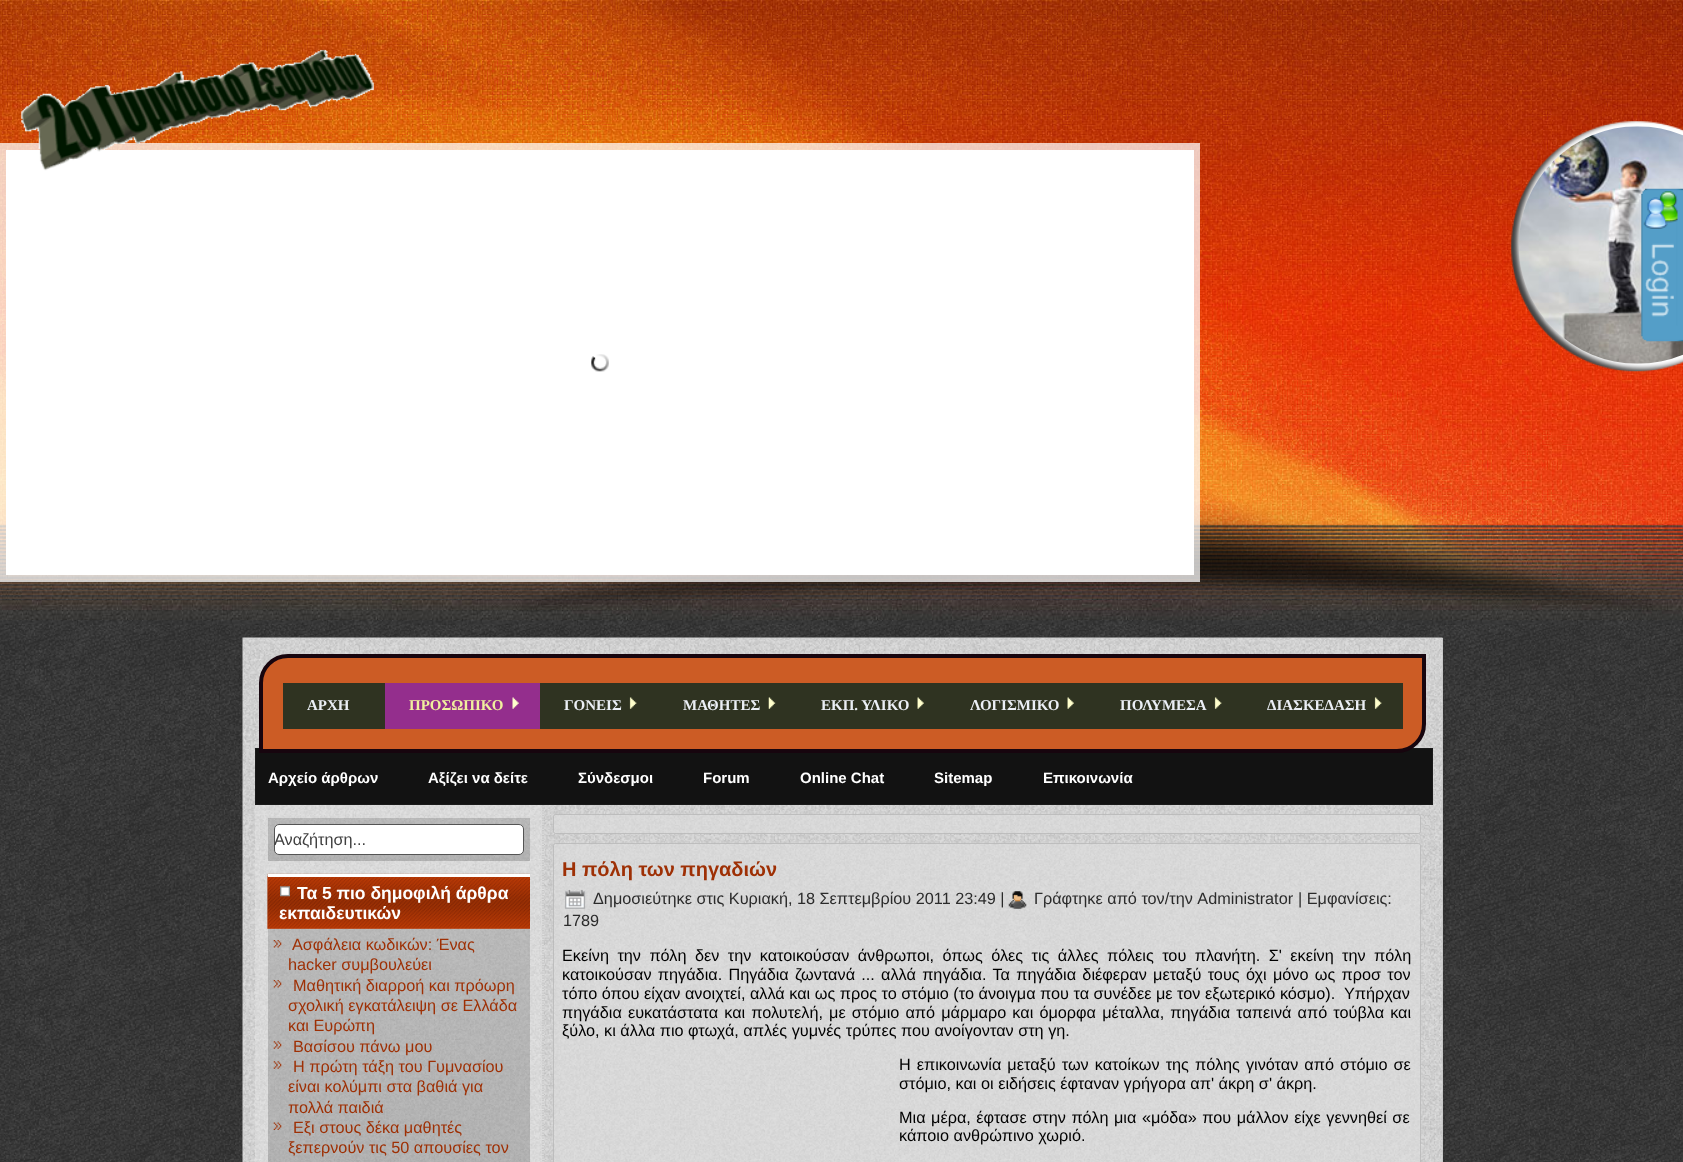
<svg xmlns="http://www.w3.org/2000/svg" width="1683" height="1162">
<defs>
<linearGradient id="g1" gradientUnits="userSpaceOnUse" x1="399" y1="818" x2="399" y2="861"><stop offset="0" stop-color="#333" stop-opacity="0.2"/><stop offset="1" stop-color="#0d0d0d" stop-opacity="0.2"/></linearGradient>
<linearGradient id="g2" gradientUnits="userSpaceOnUse" x1="399" y1="929" x2="399" y2="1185"><stop offset="0" stop-color="#333" stop-opacity="0.2"/><stop offset="1" stop-color="#0d0d0d" stop-opacity="0.2"/></linearGradient>
</defs>
<rect width="100%" height="100%" fill="#3d3d3d"/>
<image x="0" y="0" width="1683" height="625" href="media/3.png"/>
<image x="1511" y="121" width="172" height="251" href="media/5.png"/>
<image x="1519" y="126" width="164" height="238" href="media/7.png"/>
<image x="1641" y="188" width="42" height="154" href="media/1.png"/>
<image x="0" y="625" width="1683" height="537" href="media/2.png"/>
<image x="522" y="502" width="1131" height="110" href="media/8.png"/>
<rect y="143" width="1200" height="439" fill="#ffffffbd"/>
<rect x="6" y="150" width="1188" height="425" fill="#fff"/>
<image x="21" y="49" width="353" height="122" href="media/4.png"/>
<image x="591" y="354" width="18" height="18" href="media/6.png"/>
<rect x="1442" y="638" width="1" height="524" fill="#bfbfbf"/>
<image x="242" y="637" width="1201" height="525" href="media/9.png"/>
<rect x="255.5" y="748.5" width="1177" height="56" fill="#121212" stroke="#1a1a1a"/>
<path d="M288 656h1136v68c0 15-12 27-27 27h-1136v-68c0-15 12-27 27-27z" fill="#cc5c25" stroke="#17050e" stroke-width="4"/>
<rect x="283" y="683" width="102" height="46" fill="#2f3321"/>
<text x="307" y="710" style="font-family:Liberation Serif;font-size:15px;font-weight:bold;fill:#ebeff5">ΑΡΧΗ</text>
<rect x="385" y="683" width="155" height="46" fill="#942e8d"/>
<text x="409" y="710" style="font-family:Liberation Serif;font-size:15px;font-weight:bold;fill:#f0f09e">ΠΡΟΣΩΠΙΚΟ</text>
<image x="512" y="697" width="7" height="12" href="media/10.png"/>
<rect x="540" y="683" width="863" height="46" fill="#2f3321"/>
<text x="564" y="710" style="font-family:Liberation Serif;font-size:15px;font-weight:bold;fill:#ebeff5">ΓΟΝΕΙΣ</text>
<image x="629" y="697" width="8" height="12" href="media/11.png"/>
<text x="683" y="710" style="font-family:Liberation Serif;font-size:15px;font-weight:bold;fill:#ebeff5">ΜΑΘΗΤΕΣ</text>
<image x="768" y="697" width="8" height="12" href="media/12.png"/>
<text x="821" y="710" style="font-family:Liberation Serif;font-size:15px;font-weight:bold;fill:#ebeff5">ΕΚΠ. ΥΛΙΚΟ</text>
<image x="917" y="697" width="7" height="12" href="media/13.png"/>
<text x="970" y="710" style="font-family:Liberation Serif;font-size:15px;font-weight:bold;fill:#ebeff5">ΛΟΓΙΣΜΙΚΟ</text>
<image x="1067" y="697" width="7" height="12" href="media/13.png"/>
<text x="1120" y="710" style="font-family:Liberation Serif;font-size:15px;font-weight:bold;fill:#ebeff5">ΠΟΛΥΜΕΣΑ</text>
<image x="1214" y="697" width="8" height="12" href="media/11.png"/>
<text x="1267" y="710" style="font-family:Liberation Serif;font-size:15px;font-weight:bold;fill:#ebeff5">ΔΙΑΣΚΕΔΑΣΗ</text>
<image x="1374" y="697" width="8" height="12" href="media/11.png"/>
<text x="268" y="783" style="font-family:Liberation Sans;font-size:15px;font-weight:bold;fill:#fff">Αρχείο άρθρων</text>
<text x="428" y="783" style="font-family:Liberation Sans;font-size:15px;font-weight:bold;fill:#fff">Αξίζει να δείτε</text>
<text x="578" y="783" style="font-family:Liberation Sans;font-size:15px;font-weight:bold;fill:#fff">Σύνδεσμοι</text>
<text x="703" y="783" style="font-family:Liberation Sans;font-size:15px;font-weight:bold;fill:#fff">Forum</text>
<text x="800" y="783" style="font-family:Liberation Sans;font-size:15px;font-weight:bold;fill:#fff">Online Chat</text>
<text x="934" y="783" style="font-family:Liberation Sans;font-size:15px;font-weight:bold;fill:#fff">Sitemap</text>
<text x="1043" y="783" style="font-family:Liberation Sans;font-size:15px;font-weight:bold;fill:#fff">Επικοινωνία</text>
<rect x="255" y="805" width="289" height="357" fill="#e8e8e866"/>
<path d="M543 805v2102.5" fill="none" stroke="#bfbfbf" stroke-width="1.2" stroke-dasharray="1.25 1.25"/>
<rect x="268" y="818" width="262" height="43" fill="url(#g1)"/>
<rect x="274.5" y="824.5" width="249" height="30" rx="4.5" fill="#fff" stroke="#545454"/>
<text x="274" y="845" style="font-family:Liberation Sans;font-size:16.25px;fill:#404040">Αναζήτηση...</text>
<image x="267" y="873" width="263" height="56" href="media/14.png"/>
<rect x="268" y="874" width="262" height="3" fill="#fff"/>
<image x="280" y="886" width="10" height="11" href="media/15.png"/>
<text x="297" y="899" style="font-family:Liberation Sans;font-size:17.5px;font-weight:bold;fill:#fff">Τα 5 πιο δημοφιλή άρθρα</text>
<text x="279" y="919" style="font-family:Liberation Sans;font-size:17.5px;font-weight:bold;fill:#fff">εκπαιδευτικών</text>
<rect x="268" y="929" width="262" height="233" fill="url(#g2)"/>
<image x="273" y="940" width="9" height="8" href="media/16.png"/>
<text x="292" y="950" style="font-family:Liberation Sans;font-size:16.25px;fill:#9e3005">Ασφάλεια κωδικών: Ένας</text>
<text x="288" y="970" style="font-family:Liberation Sans;font-size:16.25px;fill:#9e3005">hacker συμβουλεύει</text>
<image x="273" y="980" width="9" height="8" href="media/17.png"/>
<text x="293" y="991" style="font-family:Liberation Sans;font-size:16.25px;fill:#9e3005">Μαθητική διαρροή και πρόωρη</text>
<text x="288" y="1011" style="font-family:Liberation Sans;font-size:16.25px;fill:#9e3005">σχολική εγκατάλειψη σε Ελλάδα</text>
<text x="288" y="1031" style="font-family:Liberation Sans;font-size:16.25px;fill:#9e3005">και Ευρώπη</text>
<image x="273" y="1041" width="9" height="8" href="media/18.png"/>
<text x="293" y="1052" style="font-family:Liberation Sans;font-size:16.25px;fill:#9e3005">Βασίσου πάνω μου</text>
<image x="273" y="1061" width="9" height="8" href="media/19.png"/>
<text x="293" y="1072" style="font-family:Liberation Sans;font-size:16.25px;fill:#9e3005">Η πρώτη τάξη του Γυμνασίου</text>
<text x="288" y="1092" style="font-family:Liberation Sans;font-size:16.25px;fill:#9e3005">είναι κολύμπι στα βαθιά για</text>
<text x="288" y="1113" style="font-family:Liberation Sans;font-size:16.25px;fill:#9e3005">πολλά παιδιά</text>
<image x="273" y="1122" width="9" height="8" href="media/20.png"/>
<text x="293" y="1133" style="font-family:Liberation Sans;font-size:16.25px;fill:#9e3005">Εξι στους δέκα μαθητές</text>
<text x="288" y="1153" style="font-family:Liberation Sans;font-size:16.25px;fill:#9e3005">ξεπερνούν τις 50 απουσίες τον</text>
<rect x="553" y="814" width="868" height="20" rx="2.5" fill="#dedede99"/>
<rect x="553.5" y="814.5" width="867" height="19" rx="2" fill="none" stroke="#ababab99"/>
<rect x="553" y="843" width="868" height="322" rx="2.5" fill="#dedede99"/>
<rect x="553.5" y="843.5" width="867" height="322" rx="2" fill="none" stroke="#ababab99"/>
<text x="562" y="876" style="font-family:Liberation Sans;font-size:20px;font-weight:bold;fill:#9e3005">Η πόλη των πηγαδιών</text>
<image x="565" y="889" width="21" height="20" href="media/21.png"/>
<text x="593" y="904" style="font-family:Liberation Sans;font-size:16.25px;fill:#2b2b2b">Δημοσιεύτηκε στις Κυριακή, 18 Σεπτεμβρίου 2011 23:49 |</text>
<image x="1008" y="891" width="19" height="18" href="media/22.png"/>
<text x="1034" y="904" style="font-family:Liberation Sans;font-size:16.25px;fill:#2b2b2b">Γράφτηκε από τον/την Administrator</text>
<text x="1298" y="904" style="font-family:Liberation Sans;font-size:16.25px;fill:#2b2b2b">| Εμφανίσεις:</text>
<text x="563" y="926" style="font-family:Liberation Sans;font-size:16.25px;fill:#2b2b2b">1789</text>
<text x="562" y="961" word-spacing="3.9" style="font-family:Liberation Sans;font-size:16.25px;fill:#000">Εκείνη την πόλη δεν την κατοικούσαν άνθρωποι, όπως όλες τις άλλες πόλεις του πλανήτη. Σ' εκείνη την πόλη</text>
<text x="562" y="980" word-spacing="1.75" style="font-family:Liberation Sans;font-size:16.25px;fill:#000">κατοικούσαν πηγάδια. Πηγάδια ζωντανά ... αλλά πηγάδια. Τα πηγάδια διέφεραν μεταξύ τους όχι μόνο ως προσ τον</text>
<text x="562" y="999" style="font-family:Liberation Sans;font-size:16.25px;fill:#000" xml:space="preserve">τόπο όπου είχαν ανοιχτεί, αλλά και ως προς το στόμιο (το άνοιγμα που τα συνέδεε με τον εξωτερικό κόσμο).  Υπήρχαν</text>
<text x="562" y="1018" word-spacing="1.6" style="font-family:Liberation Sans;font-size:16.25px;fill:#000">πηγάδια ευκατάστατα και πολυτελή, με στόμιο από μάρμαρο και όμορφα μέταλλα, πηγάδια ταπεινά από τούβλα και</text>
<text x="562" y="1036" style="font-family:Liberation Sans;font-size:16.25px;fill:#000">ξύλο, κι άλλα πιο φτωχά, απλές γυμνές τρύπες που ανοίγονταν στη γη.</text>
<text x="899" y="1070" word-spacing="1.5" style="font-family:Liberation Sans;font-size:16.25px;fill:#000">Η επικοινωνία μεταξύ των κατοίκων της πόλης γινόταν από στόμιο σε</text>
<text x="899" y="1089" style="font-family:Liberation Sans;font-size:16.25px;fill:#000">στόμιο, και οι ειδήσεις έφταναν γρήγορα απ' άκρη σ' άκρη.</text>
<text x="899" y="1123" word-spacing="1" style="font-family:Liberation Sans;font-size:16.25px;fill:#000">Μια μέρα, έφτασε στην πόλη μια «μόδα» που μάλλον είχε γεννηθεί σε</text>
<text x="899" y="1141" style="font-family:Liberation Sans;font-size:16.25px;fill:#000">κάποιο ανθρώπινο χωριό.</text>
</svg>
